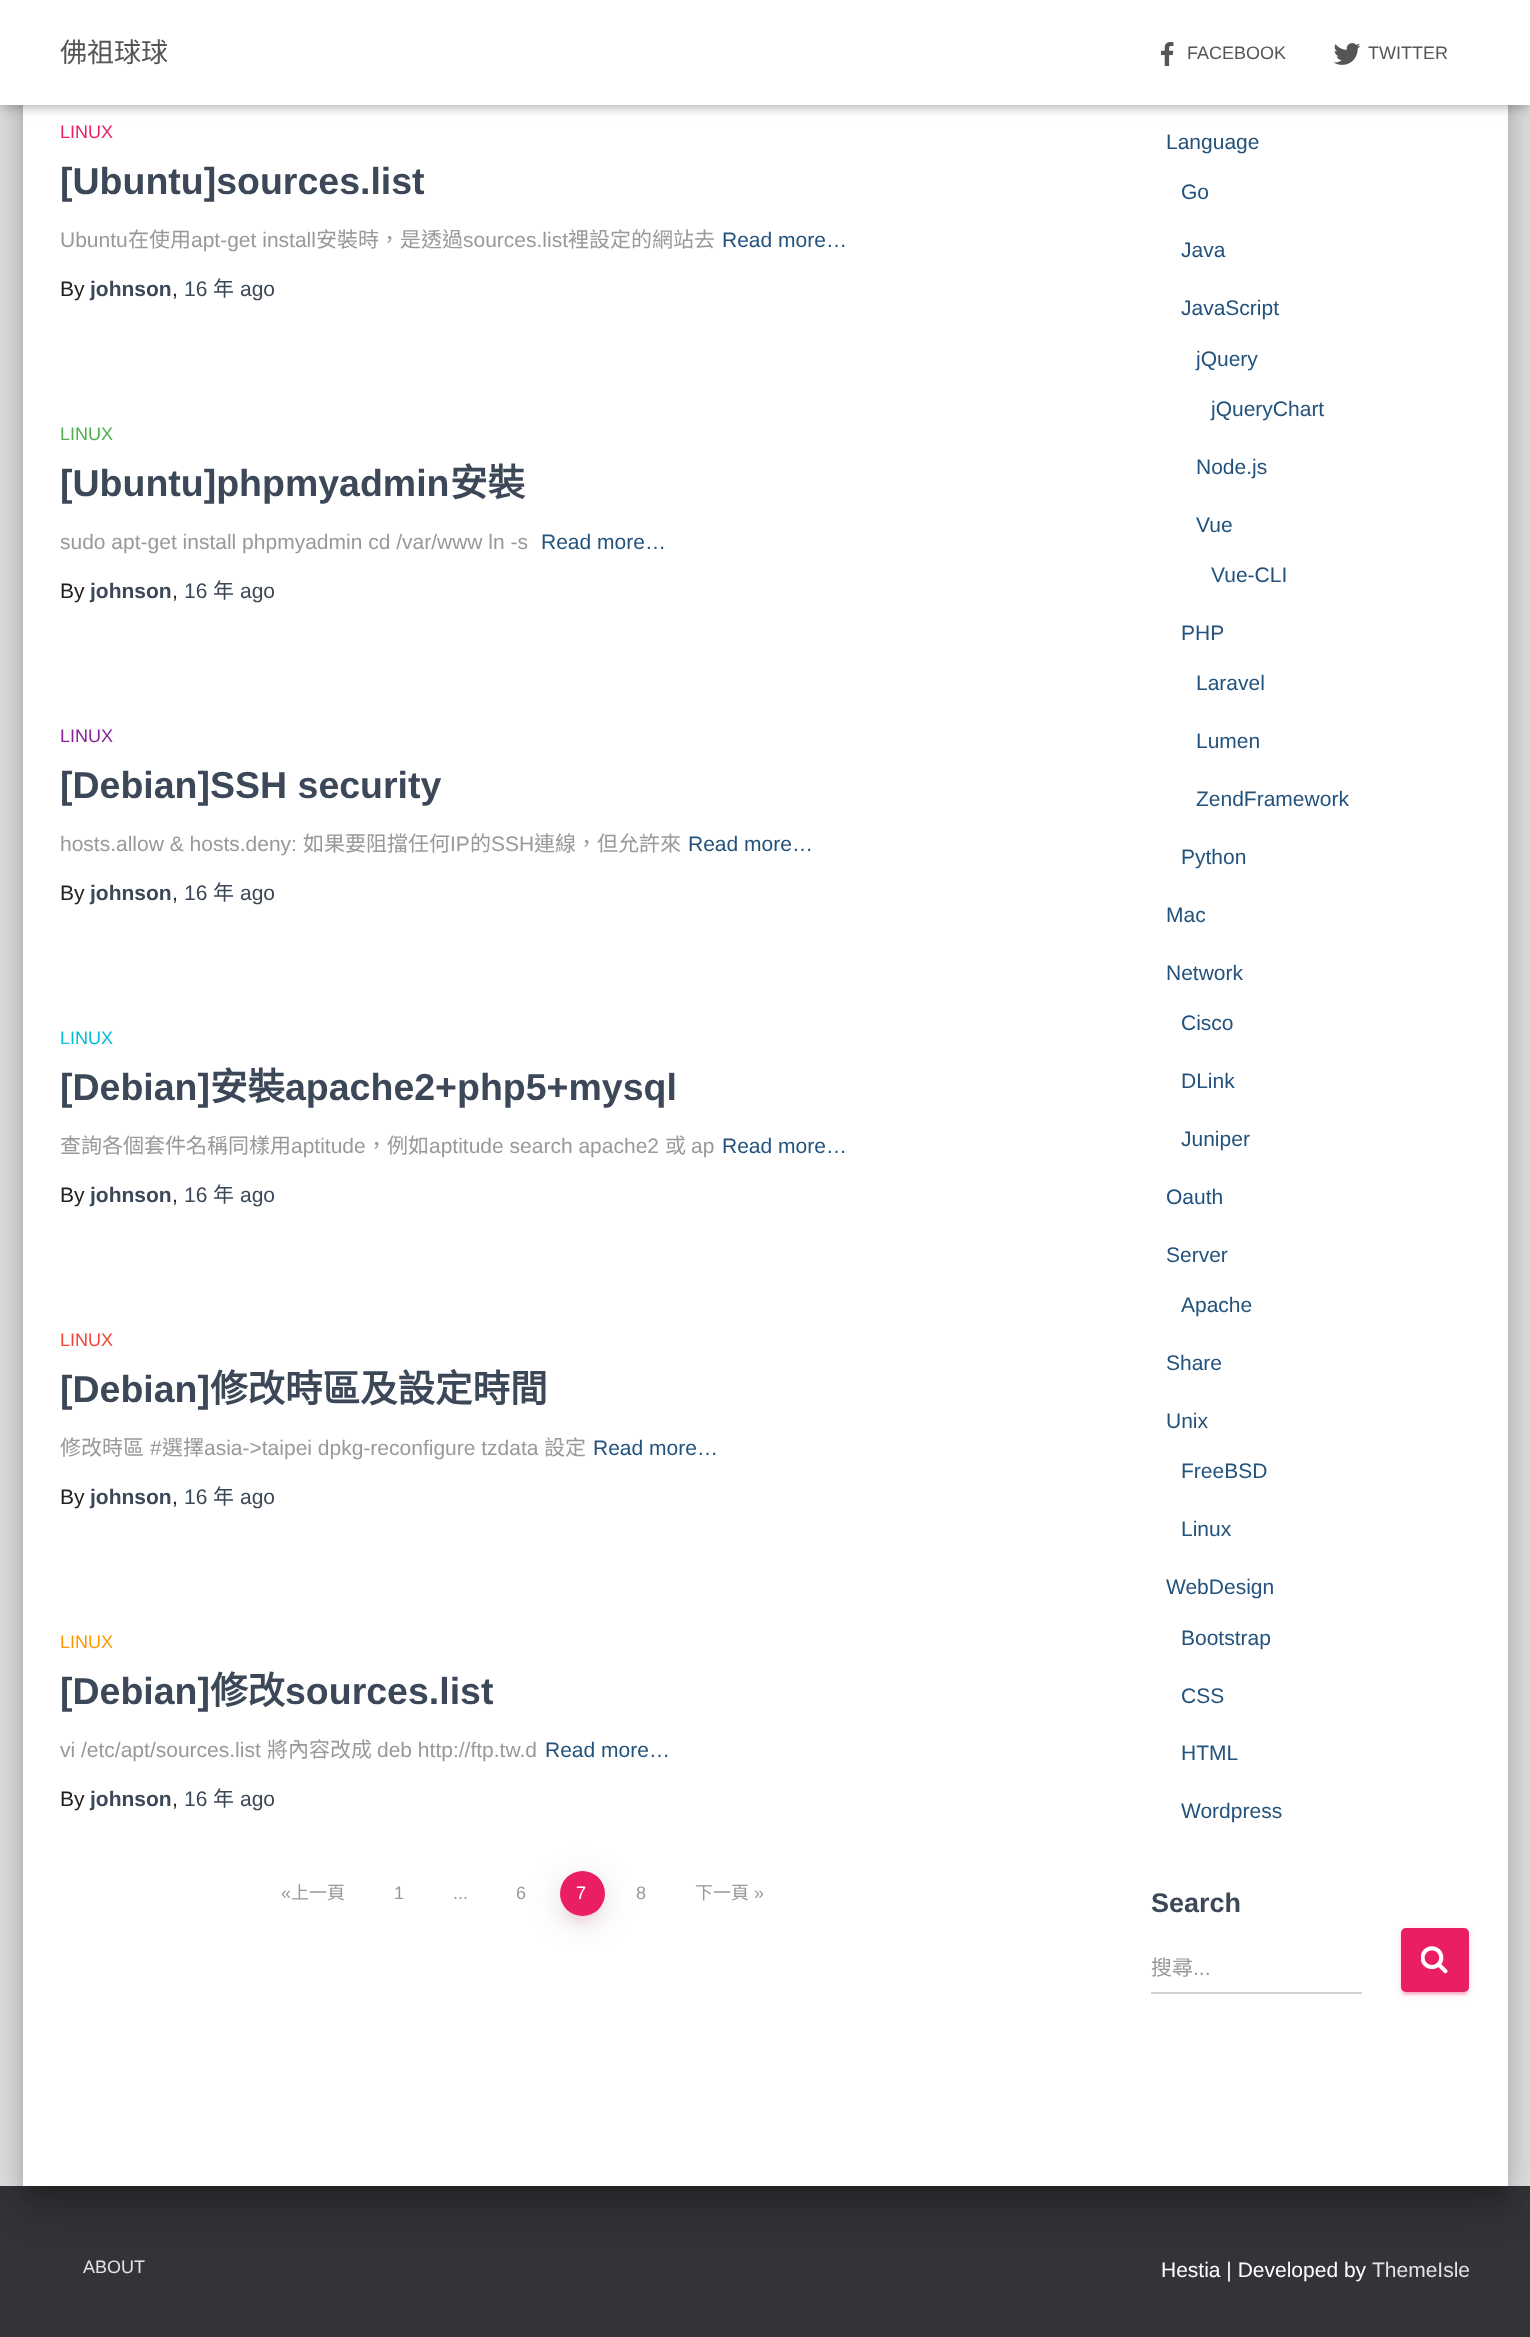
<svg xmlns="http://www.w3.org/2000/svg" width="1530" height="2337">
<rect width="100%" height="100%" fill="#e5e5e5"/>
<rect y="2186" width="1530" height="151" fill="#323437"/>
<rect x="30" y="-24" width="1470" height="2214" rx="1.5" fill="#00000033" filter="blur(7.5px)"/>
<rect x="15" y="-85" width="1500" height="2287" rx="17" fill="#0000001f" filter="blur(22.5px)"/>
<rect x="20" y="-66" width="1491" height="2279" rx="12" fill="#00000024" filter="blur(18px)"/>
<rect x="23" y="105" width="1485" height="2081" fill="#fff"/>
<rect x="3" y="9" width="1524" height="99" fill="#0000001a" filter="blur(4px)"/>
<rect y="2" width="1530" height="105" fill="#0000001f" filter="blur(7.5px)"/>
<rect x="9" y="11" width="1512" height="87" fill="#0000006b" filter="blur(7.5px)"/>
<rect width="1530" height="105" fill="#fff"/>
<text x="60" y="62" style="font-family:Noto Sans CJK TC;font-size:27px;fill:#555">佛祖球球</text>
<image x="1161" y="42" width="13" height="24" href="media/1.png"/>
<text x="1187" y="59" style="font-family:Liberation Sans;font-size:18px;fill:#555">FACEBOOK</text>
<image x="1333" y="43" width="28" height="22" href="media/2.png"/>
<text x="1368" y="59" style="font-family:Liberation Sans;font-size:18px;fill:#555">TWITTER</text>
<text x="60" y="138" style="font-family:Liberation Sans;font-size:18px;fill:#e91e63">LINUX</text>
<text x="60" y="194" style="font-family:Liberation Sans;font-size:37.5px;font-weight:bold;fill:#3c4858">[Ubuntu]sources.list</text>
<text x="60" y="247" style="font-family:Liberation Sans;font-size:21px;fill:#999">Ubuntu</text>
<text x="128" y="247" style="font-family:Noto Sans CJK TC;font-size:21px;fill:#999">在使用</text>
<text x="191" y="247" style="font-family:Liberation Sans;font-size:21px;fill:#999">apt-get install</text>
<text x="316" y="247" style="font-family:Noto Sans CJK TC;font-size:21px;fill:#999">安裝時，是透過</text>
<text x="463" y="247" style="font-family:Liberation Sans;font-size:21px;fill:#999">sources.list</text>
<text x="568" y="247" style="font-family:Noto Sans CJK TC;font-size:21px;fill:#999">裡設定的網站去</text>
<text x="722" y="247" style="font-family:Liberation Sans;font-size:21px;fill:#23527c">Read more…</text>
<text x="60" y="296" style="font-family:Liberation Sans;font-size:21px;fill:#212121">By</text>
<text x="90" y="296" style="font-family:Liberation Sans;font-size:21px;font-weight:bold;fill:#3c4858">johnson</text>
<text x="172" y="296" style="font-family:Liberation Sans;font-size:21px;fill:#212121">,</text>
<text x="184" y="296" style="font-family:Liberation Sans;font-size:21px;fill:#3c4858">16</text>
<text x="213" y="296" style="font-family:Noto Sans CJK TC;font-size:21px;fill:#3c4858">年</text>
<text x="240" y="296" style="font-family:Liberation Sans;font-size:21px;fill:#3c4858">ago</text>
<text x="60" y="440" style="font-family:Liberation Sans;font-size:18px;fill:#4caf50">LINUX</text>
<text x="60" y="496" style="font-family:Liberation Sans;font-size:37.5px;font-weight:bold;fill:#3c4858">[Ubuntu]phpmyadmin</text>
<text x="450" y="496" style="font-family:Noto Sans CJK TC;font-size:37.5px;font-weight:bold;fill:#3c4858">安裝</text>
<text x="60" y="549" style="font-family:Liberation Sans;font-size:21px;fill:#999">sudo apt-get install phpmyadmin cd /var/www ln -s</text>
<text x="541" y="549" style="font-family:Liberation Sans;font-size:21px;fill:#23527c">Read more…</text>
<text x="60" y="598" style="font-family:Liberation Sans;font-size:21px;fill:#212121">By</text>
<text x="90" y="598" style="font-family:Liberation Sans;font-size:21px;font-weight:bold;fill:#3c4858">johnson</text>
<text x="172" y="598" style="font-family:Liberation Sans;font-size:21px;fill:#212121">,</text>
<text x="184" y="598" style="font-family:Liberation Sans;font-size:21px;fill:#3c4858">16</text>
<text x="213" y="598" style="font-family:Noto Sans CJK TC;font-size:21px;fill:#3c4858">年</text>
<text x="240" y="598" style="font-family:Liberation Sans;font-size:21px;fill:#3c4858">ago</text>
<text x="60" y="742" style="font-family:Liberation Sans;font-size:18px;fill:#89229b">LINUX</text>
<text x="60" y="798" style="font-family:Liberation Sans;font-size:37.5px;font-weight:bold;fill:#3c4858">[Debian]SSH security</text>
<text x="60" y="851" style="font-family:Liberation Sans;font-size:21px;fill:#999">hosts.allow &amp; hosts.deny:</text>
<text x="303" y="851" style="font-family:Noto Sans CJK TC;font-size:21px;fill:#999">如果要阻擋任何</text>
<text x="450" y="851" style="font-family:Liberation Sans;font-size:21px;fill:#999">IP</text>
<text x="470" y="851" style="font-family:Noto Sans CJK TC;font-size:21px;fill:#999">的</text>
<text x="491" y="851" style="font-family:Liberation Sans;font-size:21px;fill:#999">SSH</text>
<text x="534" y="851" style="font-family:Noto Sans CJK TC;font-size:21px;fill:#999">連線，但允許來</text>
<text x="688" y="851" style="font-family:Liberation Sans;font-size:21px;fill:#23527c">Read more…</text>
<text x="60" y="900" style="font-family:Liberation Sans;font-size:21px;fill:#212121">By</text>
<text x="90" y="900" style="font-family:Liberation Sans;font-size:21px;font-weight:bold;fill:#3c4858">johnson</text>
<text x="172" y="900" style="font-family:Liberation Sans;font-size:21px;fill:#212121">,</text>
<text x="184" y="900" style="font-family:Liberation Sans;font-size:21px;fill:#3c4858">16</text>
<text x="213" y="900" style="font-family:Noto Sans CJK TC;font-size:21px;fill:#3c4858">年</text>
<text x="240" y="900" style="font-family:Liberation Sans;font-size:21px;fill:#3c4858">ago</text>
<text x="60" y="1044" style="font-family:Liberation Sans;font-size:18px;fill:#00bcd4">LINUX</text>
<text x="60" y="1100" style="font-family:Liberation Sans;font-size:37.5px;font-weight:bold;fill:#3c4858">[Debian]</text>
<text x="210" y="1100" style="font-family:Noto Sans CJK TC;font-size:37.5px;font-weight:bold;fill:#3c4858">安裝</text>
<text x="285" y="1100" style="font-family:Liberation Sans;font-size:37.5px;font-weight:bold;fill:#3c4858">apache2+php5+mysql</text>
<text x="60" y="1153" style="font-family:Noto Sans CJK TC;font-size:21px;fill:#999">查詢各個套件名稱同樣用</text>
<text x="291" y="1153" style="font-family:Liberation Sans;font-size:21px;fill:#999">aptitude</text>
<text x="366" y="1153" style="font-family:Noto Sans CJK TC;font-size:21px;fill:#999">，例如</text>
<text x="429" y="1153" style="font-family:Liberation Sans;font-size:21px;fill:#999">aptitude search apache2</text>
<text x="665" y="1153" style="font-family:Noto Sans CJK TC;font-size:21px;fill:#999">或</text>
<text x="691" y="1153" style="font-family:Liberation Sans;font-size:21px;fill:#999">ap</text>
<text x="722" y="1153" style="font-family:Liberation Sans;font-size:21px;fill:#23527c">Read more…</text>
<text x="60" y="1202" style="font-family:Liberation Sans;font-size:21px;fill:#212121">By</text>
<text x="90" y="1202" style="font-family:Liberation Sans;font-size:21px;font-weight:bold;fill:#3c4858">johnson</text>
<text x="172" y="1202" style="font-family:Liberation Sans;font-size:21px;fill:#212121">,</text>
<text x="184" y="1202" style="font-family:Liberation Sans;font-size:21px;fill:#3c4858">16</text>
<text x="213" y="1202" style="font-family:Noto Sans CJK TC;font-size:21px;fill:#3c4858">年</text>
<text x="240" y="1202" style="font-family:Liberation Sans;font-size:21px;fill:#3c4858">ago</text>
<text x="60" y="1346" style="font-family:Liberation Sans;font-size:18px;fill:#f44336">LINUX</text>
<text x="60" y="1402" style="font-family:Liberation Sans;font-size:37.5px;font-weight:bold;fill:#3c4858">[Debian]</text>
<text x="210" y="1402" style="font-family:Noto Sans CJK TC;font-size:37.5px;font-weight:bold;fill:#3c4858">修改時區及設定時間</text>
<text x="60" y="1455" style="font-family:Noto Sans CJK TC;font-size:21px;fill:#999">修改時區</text>
<text x="150" y="1455" style="font-family:Liberation Sans;font-size:21px;fill:#999">#</text>
<text x="162" y="1455" style="font-family:Noto Sans CJK TC;font-size:21px;fill:#999">選擇</text>
<text x="204" y="1455" style="font-family:Liberation Sans;font-size:21px;fill:#999">asia-&gt;taipei dpkg-reconfigure tzdata</text>
<text x="544" y="1455" style="font-family:Noto Sans CJK TC;font-size:21px;fill:#999">設定</text>
<text x="593" y="1455" style="font-family:Liberation Sans;font-size:21px;fill:#23527c">Read more…</text>
<text x="60" y="1504" style="font-family:Liberation Sans;font-size:21px;fill:#212121">By</text>
<text x="90" y="1504" style="font-family:Liberation Sans;font-size:21px;font-weight:bold;fill:#3c4858">johnson</text>
<text x="172" y="1504" style="font-family:Liberation Sans;font-size:21px;fill:#212121">,</text>
<text x="184" y="1504" style="font-family:Liberation Sans;font-size:21px;fill:#3c4858">16</text>
<text x="213" y="1504" style="font-family:Noto Sans CJK TC;font-size:21px;fill:#3c4858">年</text>
<text x="240" y="1504" style="font-family:Liberation Sans;font-size:21px;fill:#3c4858">ago</text>
<text x="60" y="1648" style="font-family:Liberation Sans;font-size:18px;fill:#ff9800">LINUX</text>
<text x="60" y="1704" style="font-family:Liberation Sans;font-size:37.5px;font-weight:bold;fill:#3c4858">[Debian]</text>
<text x="210" y="1704" style="font-family:Noto Sans CJK TC;font-size:37.5px;font-weight:bold;fill:#3c4858">修改</text>
<text x="285" y="1704" style="font-family:Liberation Sans;font-size:37.5px;font-weight:bold;fill:#3c4858">sources.list</text>
<text x="60" y="1757" style="font-family:Liberation Sans;font-size:21px;fill:#999">vi /etc/apt/sources.list</text>
<text x="267" y="1757" style="font-family:Noto Sans CJK TC;font-size:21px;fill:#999">將內容改成</text>
<text x="377" y="1757" style="font-family:Liberation Sans;font-size:21px;fill:#999">deb http://ftp.tw.d</text>
<text x="545" y="1757" style="font-family:Liberation Sans;font-size:21px;fill:#23527c">Read more…</text>
<text x="60" y="1806" style="font-family:Liberation Sans;font-size:21px;fill:#212121">By</text>
<text x="90" y="1806" style="font-family:Liberation Sans;font-size:21px;font-weight:bold;fill:#3c4858">johnson</text>
<text x="172" y="1806" style="font-family:Liberation Sans;font-size:21px;fill:#212121">,</text>
<text x="184" y="1806" style="font-family:Liberation Sans;font-size:21px;fill:#3c4858">16</text>
<text x="213" y="1806" style="font-family:Noto Sans CJK TC;font-size:21px;fill:#3c4858">年</text>
<text x="240" y="1806" style="font-family:Liberation Sans;font-size:21px;fill:#3c4858">ago</text>
<text x="281" y="1899" style="font-family:Liberation Sans;font-size:18px;fill:#999">«</text>
<text x="291" y="1899" style="font-family:Noto Sans CJK TC;font-size:18px;fill:#999">上一頁</text>
<text x="394" y="1899" style="font-family:Liberation Sans;font-size:18px;fill:#999">1</text>
<text x="453" y="1899" style="font-family:Liberation Sans;font-size:18px;fill:#999">...</text>
<text x="516" y="1899" style="font-family:Liberation Sans;font-size:18px;fill:#999">6</text>
<rect x="567" y="1890" width="30" height="30" rx="15" fill="#e91e6333" filter="blur(7.5px)"/>
<rect x="560" y="1877" width="45" height="45" rx="22.5" fill="#0000001f" filter="blur(17px)"/>
<circle cx="582.5" cy="1893.5" r="22.5" fill="#e91e63"/>
<text x="576" y="1899" style="font-family:Liberation Sans;font-size:18px;fill:#fff">7</text>
<text x="636" y="1899" style="font-family:Liberation Sans;font-size:18px;fill:#999">8</text>
<text x="695" y="1899" style="font-family:Noto Sans CJK TC;font-size:18px;fill:#999">下一頁</text>
<text x="754" y="1899" style="font-family:Liberation Sans;font-size:18px;fill:#999">»</text>
<text x="1166" y="149" style="font-family:Liberation Sans;font-size:21px;fill:#23527c">Language</text>
<text x="1181" y="199" style="font-family:Liberation Sans;font-size:21px;fill:#23527c">Go</text>
<text x="1181" y="257" style="font-family:Liberation Sans;font-size:21px;fill:#23527c">Java</text>
<text x="1181" y="315" style="font-family:Liberation Sans;font-size:21px;fill:#23527c">JavaScript</text>
<text x="1196" y="366" style="font-family:Liberation Sans;font-size:21px;fill:#23527c">jQuery</text>
<text x="1211" y="416" style="font-family:Liberation Sans;font-size:21px;fill:#23527c">jQueryChart</text>
<text x="1196" y="474" style="font-family:Liberation Sans;font-size:21px;fill:#23527c">Node.js</text>
<text x="1196" y="532" style="font-family:Liberation Sans;font-size:21px;fill:#23527c">Vue</text>
<text x="1211" y="582" style="font-family:Liberation Sans;font-size:21px;fill:#23527c">Vue-CLI</text>
<text x="1181" y="640" style="font-family:Liberation Sans;font-size:21px;fill:#23527c">PHP</text>
<text x="1196" y="690" style="font-family:Liberation Sans;font-size:21px;fill:#23527c">Laravel</text>
<text x="1196" y="748" style="font-family:Liberation Sans;font-size:21px;fill:#23527c">Lumen</text>
<text x="1196" y="806" style="font-family:Liberation Sans;font-size:21px;fill:#23527c">ZendFramework</text>
<text x="1181" y="864" style="font-family:Liberation Sans;font-size:21px;fill:#23527c">Python</text>
<text x="1166" y="922" style="font-family:Liberation Sans;font-size:21px;fill:#23527c">Mac</text>
<text x="1166" y="980" style="font-family:Liberation Sans;font-size:21px;fill:#23527c">Network</text>
<text x="1181" y="1030" style="font-family:Liberation Sans;font-size:21px;fill:#23527c">Cisco</text>
<text x="1181" y="1088" style="font-family:Liberation Sans;font-size:21px;fill:#23527c">DLink</text>
<text x="1181" y="1146" style="font-family:Liberation Sans;font-size:21px;fill:#23527c">Juniper</text>
<text x="1166" y="1204" style="font-family:Liberation Sans;font-size:21px;fill:#23527c">Oauth</text>
<text x="1166" y="1262" style="font-family:Liberation Sans;font-size:21px;fill:#23527c">Server</text>
<text x="1181" y="1312" style="font-family:Liberation Sans;font-size:21px;fill:#23527c">Apache</text>
<text x="1166" y="1370" style="font-family:Liberation Sans;font-size:21px;fill:#23527c">Share</text>
<text x="1166" y="1428" style="font-family:Liberation Sans;font-size:21px;fill:#23527c">Unix</text>
<text x="1181" y="1478" style="font-family:Liberation Sans;font-size:21px;fill:#23527c">FreeBSD</text>
<text x="1181" y="1536" style="font-family:Liberation Sans;font-size:21px;fill:#23527c">Linux</text>
<text x="1166" y="1594" style="font-family:Liberation Sans;font-size:21px;fill:#23527c">WebDesign</text>
<text x="1181" y="1645" style="font-family:Liberation Sans;font-size:21px;fill:#23527c">Bootstrap</text>
<text x="1181" y="1703" style="font-family:Liberation Sans;font-size:21px;fill:#23527c">CSS</text>
<text x="1181" y="1760" style="font-family:Liberation Sans;font-size:21px;fill:#23527c">HTML</text>
<text x="1181" y="1818" style="font-family:Liberation Sans;font-size:21px;fill:#23527c">Wordpress</text>
<text x="1151" y="1912" style="font-family:Liberation Sans;font-size:27px;font-weight:bold;fill:#3c4858">Search</text>
<rect x="1151" y="1992" width="211" height="2" fill="#d2d2d2"/>
<text x="1151" y="1975" style="font-family:Noto Sans CJK TC;font-size:21px;fill:#999">搜尋</text>
<text x="1193" y="1975" style="font-family:Liberation Sans;font-size:21px;fill:#999">...</text>
<rect x="1401" y="1929" width="68" height="65" rx="5" fill="#e91e631f" filter="blur(4px)"/>
<rect x="1404" y="1935" width="62" height="59" rx="1.5" fill="#e91e6333" filter="blur(1px)"/>
<rect x="1401" y="1931" width="68" height="64" rx="5" fill="#e91e6324" filter="blur(1.5px)"/>
<rect x="1401" y="1928" width="68" height="64" rx="5" fill="#e91e63"/>
<image x="1421" y="1946" width="27" height="28" href="media/3.png"/>
<text x="83" y="2273" style="font-family:Liberation Sans;font-size:18px;fill:#e2e3e3">ABOUT</text>
<text x="1161" y="2277" style="font-family:Liberation Sans;font-size:21px;fill:#fff">Hestia | Developed by</text>
<text x="1372" y="2277" style="font-family:Liberation Sans;font-size:21px;fill:#e2e3e3">ThemeIsle</text>
</svg>
